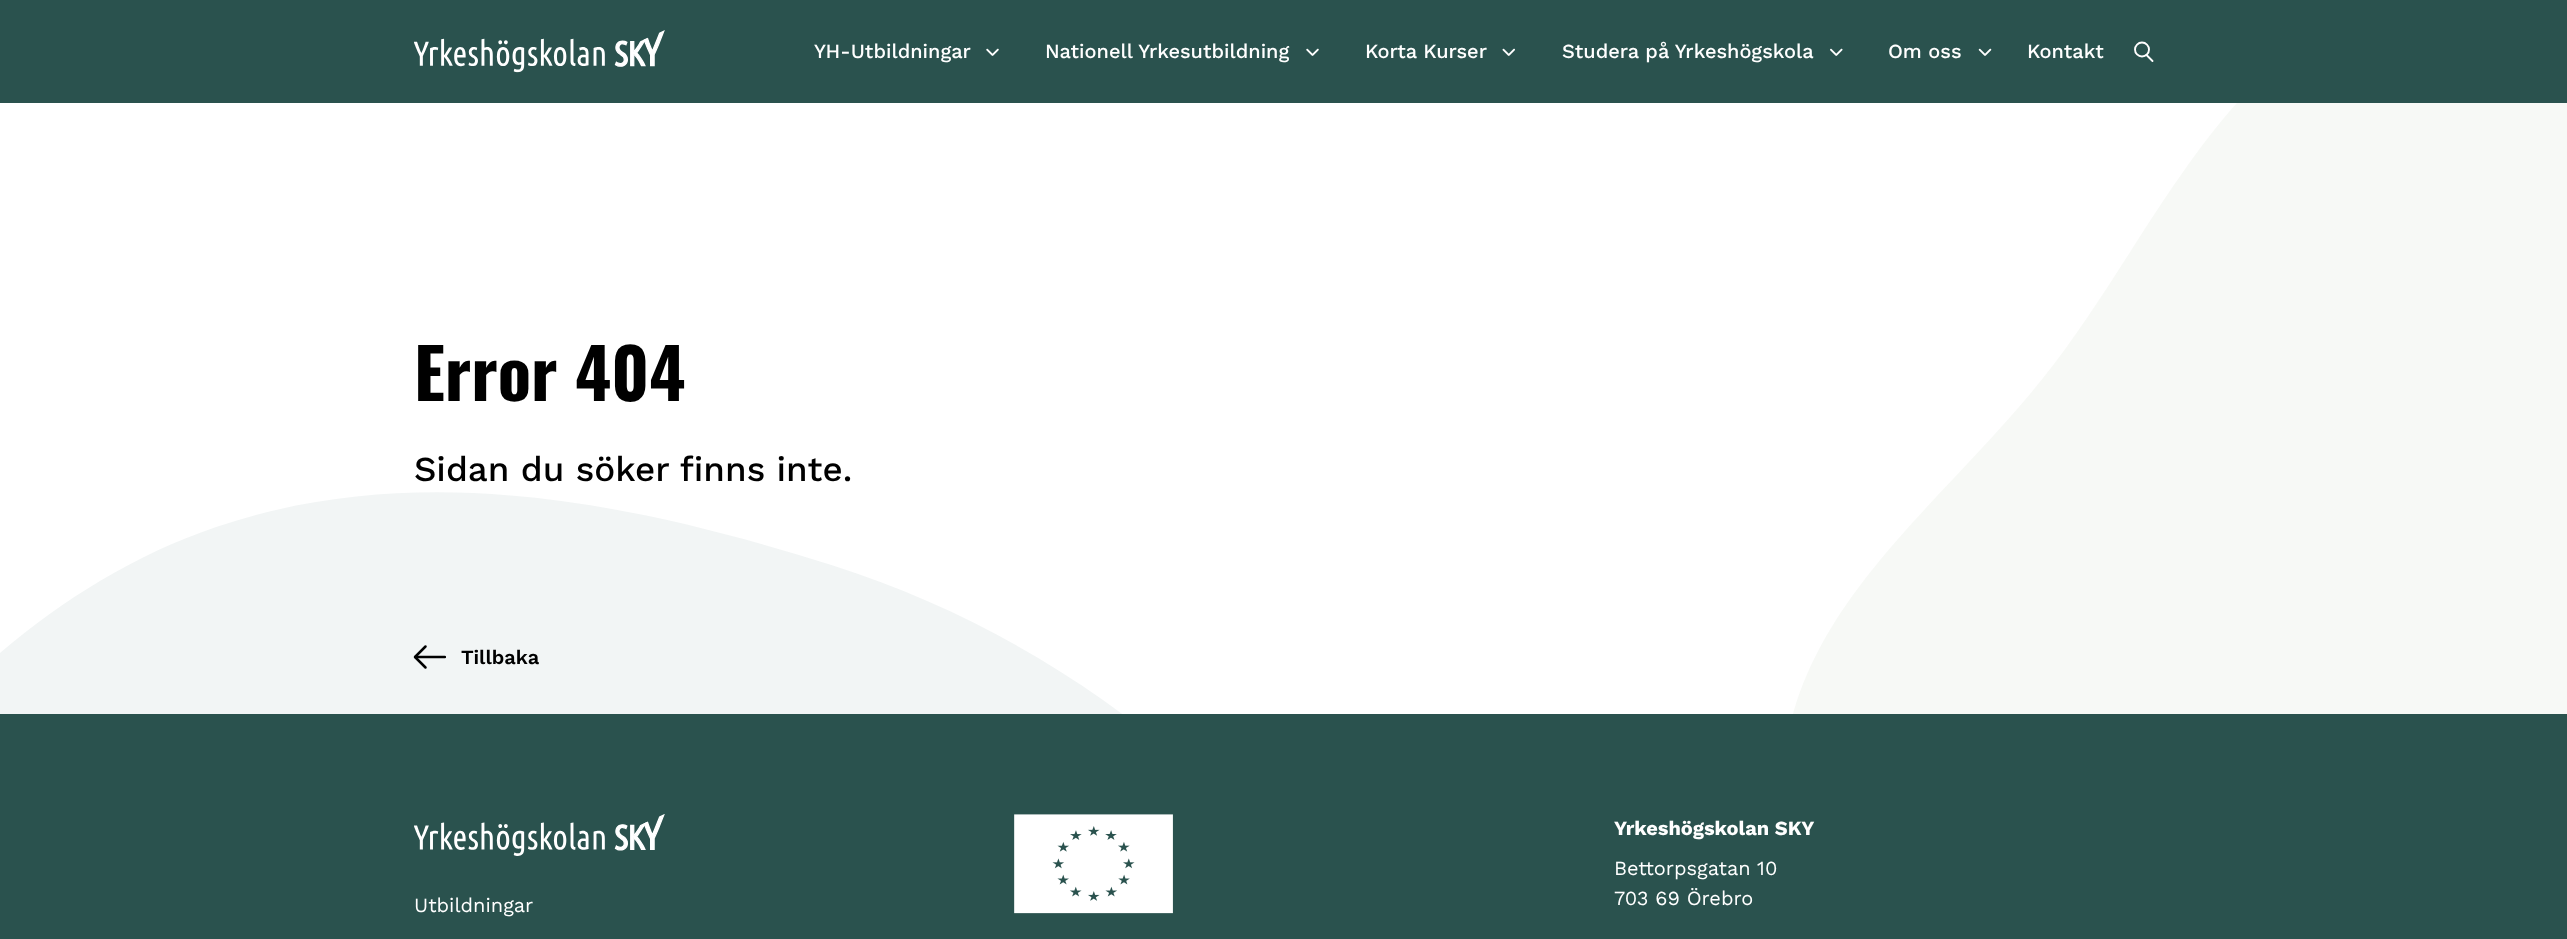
<svg xmlns="http://www.w3.org/2000/svg" width="2567" height="939">
<defs>
<clipPath id="clip1"><rect x="414" y="645" width="32" height="24"/></clipPath>
</defs>
<rect width="100%" height="100%" fill="#fff"/>
<image x="0" y="103" width="2567" height="611" href="media/1.png"/>
<rect width="2567" height="103" fill="#2a524e"/>
<image x="414" y="30" width="251" height="43" href="media/2.png"/>
<text x="814" y="58" style="font-family:Work Sans;font-size:20px;font-weight:500;fill:#fff">YH-Utbildningar</text>
<image x="986" y="48" width="13" height="8" href="media/3.png"/>
<text x="1045" y="58" style="font-family:Work Sans;font-size:20px;font-weight:500;fill:#fff">Nationell Yrkesutbildning</text>
<image x="1306" y="48" width="13" height="8" href="media/3.png"/>
<text x="1365" y="58" style="font-family:Work Sans;font-size:20px;font-weight:500;fill:#fff">Korta Kurser</text>
<image x="1502" y="48" width="13" height="8" href="media/4.png"/>
<text x="1562" y="58" style="font-family:Work Sans;font-size:20px;font-weight:500;fill:#fff">Studera på Yrkeshögskola</text>
<image x="1830" y="48" width="13" height="8" href="media/5.png"/>
<text x="1888" y="58" style="font-family:Work Sans;font-size:20px;font-weight:500;fill:#fff">Om oss</text>
<image x="1978" y="48" width="14" height="8" href="media/6.png"/>
<text x="2027" y="58" style="font-family:Work Sans;font-size:20px;font-weight:500;fill:#fff">Kontakt</text>
<circle cx="2142" cy="49.5" r="7" fill="none" stroke="#fff" stroke-width="1.9"/>
<path d="M2146.5 55l6 6" fill="none" stroke="#fff" stroke-width="1.9" stroke-linecap="round"/>
<text x="414" y="401" style="font-family:Oswald;font-size:69px;font-weight:bold;fill:#000">Error 404</text>
<text x="414" y="481" style="font-family:Work Sans;font-size:35px;font-weight:500;fill:#000">Sidan du söker finns inte.</text>
<g clip-path="url(#clip1)">
<path d="M445 657h-30" fill="none" stroke="#000" stroke-width="2.5" stroke-linecap="round"/>
</g>
<path d="M425.5 667.5l-10.5-10.5l10.5-10.5" fill="none" stroke="#000" stroke-width="2.5" stroke-linecap="round" stroke-linejoin="round"/>
<text x="461" y="664" style="font-family:Work Sans;font-size:20px;font-weight:600;fill:#000">Tillbaka</text>
<rect y="714" width="2567" height="225" fill="#2a524e"/>
<image x="414" y="814" width="251" height="42" href="media/7.png"/>
<text x="414" y="912" style="font-family:Work Sans;font-size:20px;fill:#fff">Utbildningar</text>
<image x="1014" y="814" width="159" height="100" href="media/8.png"/>
<text x="1614" y="835" style="font-family:Work Sans;font-size:20px;font-weight:bold;fill:#fff">Yrkeshögskolan SKY</text>
<text x="1614" y="875" style="font-family:Work Sans;font-size:20px;fill:#fff">Bettorpsgatan 10</text>
<text x="1614" y="905" style="font-family:Work Sans;font-size:20px;fill:#fff">703 69 Örebro</text>
</svg>
